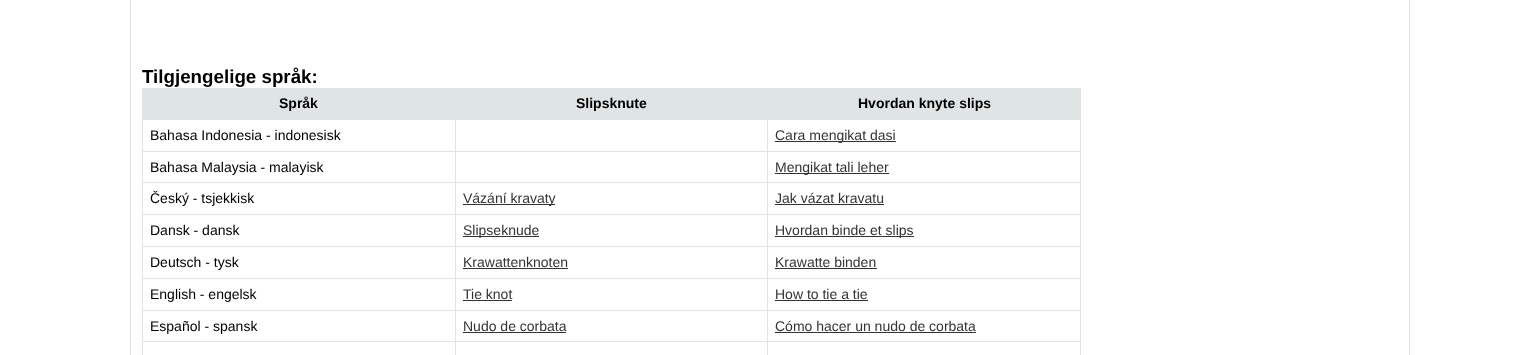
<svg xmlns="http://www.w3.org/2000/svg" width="1539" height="355">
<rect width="100%" height="100%" fill="#fff"/>
<rect x="1409" width="1" height="355" fill="#dde1e5"/>
<rect x="130" width="1" height="355" fill="#dde1e5"/>
<text x="142" y="83" style="font-family:Liberation Sans;font-size:18.75px;font-weight:bold;fill:#000">Tilgjengelige språk:</text>
<rect x="142" y="88" width="939" height="31" fill="#dfe4e5"/>
<text x="279" y="108" style="font-family:Liberation Sans;font-size:14px;font-weight:bold;fill:#000">Språk</text>
<text x="576" y="108" style="font-family:Liberation Sans;font-size:14px;font-weight:bold;fill:#000">Slipsknute</text>
<text x="858" y="108" style="font-family:Liberation Sans;font-size:14px;font-weight:bold;fill:#000">Hvordan knyte slips</text>
<rect x="767" y="119" width="314" height="1" fill="#dfe4e5"/>
<rect x="767" y="151" width="314" height="1" fill="#dfe4e5"/>
<rect x="767" y="182" width="314" height="1" fill="#dfe4e5"/>
<rect x="767" y="214" width="314" height="1" fill="#dfe4e5"/>
<rect x="767" y="246" width="314" height="1" fill="#dfe4e5"/>
<rect x="767" y="278" width="314" height="1" fill="#dfe4e5"/>
<rect x="767" y="310" width="314" height="1" fill="#dfe4e5"/>
<rect x="767" y="341" width="314" height="1" fill="#dfe4e5"/>
<rect x="767" y="341" width="1" height="14" fill="#dfe4e5"/>
<rect x="455" y="341" width="313" height="1" fill="#dfe4e5"/>
<rect x="767" y="310" width="1" height="32" fill="#dfe4e5"/>
<rect x="455" y="310" width="313" height="1" fill="#dfe4e5"/>
<rect x="767" y="278" width="1" height="33" fill="#dfe4e5"/>
<rect x="455" y="278" width="313" height="1" fill="#dfe4e5"/>
<rect x="767" y="246" width="1" height="33" fill="#dfe4e5"/>
<rect x="455" y="246" width="313" height="1" fill="#dfe4e5"/>
<rect x="767" y="214" width="1" height="33" fill="#dfe4e5"/>
<rect x="455" y="214" width="313" height="1" fill="#dfe4e5"/>
<rect x="767" y="182" width="1" height="33" fill="#dfe4e5"/>
<rect x="455" y="182" width="313" height="1" fill="#dfe4e5"/>
<rect x="767" y="151" width="1" height="32" fill="#dfe4e5"/>
<rect x="455" y="151" width="313" height="1" fill="#dfe4e5"/>
<rect x="767" y="119" width="1" height="33" fill="#dfe4e5"/>
<rect x="455" y="119" width="313" height="1" fill="#dfe4e5"/>
<rect x="455" y="341" width="1" height="14" fill="#dfe4e5"/>
<rect x="142" y="341" width="314" height="1" fill="#dfe4e5"/>
<rect x="455" y="310" width="1" height="32" fill="#dfe4e5"/>
<rect x="142" y="310" width="314" height="1" fill="#dfe4e5"/>
<rect x="455" y="278" width="1" height="33" fill="#dfe4e5"/>
<rect x="142" y="278" width="314" height="1" fill="#dfe4e5"/>
<rect x="455" y="246" width="1" height="33" fill="#dfe4e5"/>
<rect x="142" y="246" width="314" height="1" fill="#dfe4e5"/>
<rect x="455" y="214" width="1" height="33" fill="#dfe4e5"/>
<rect x="142" y="214" width="314" height="1" fill="#dfe4e5"/>
<rect x="455" y="182" width="1" height="33" fill="#dfe4e5"/>
<rect x="142" y="182" width="314" height="1" fill="#dfe4e5"/>
<rect x="455" y="151" width="1" height="32" fill="#dfe4e5"/>
<rect x="142" y="151" width="314" height="1" fill="#dfe4e5"/>
<rect x="455" y="119" width="1" height="33" fill="#dfe4e5"/>
<rect x="142" y="119" width="314" height="1" fill="#dfe4e5"/>
<rect x="142" y="341" width="1" height="14" fill="#dfe4e5"/>
<rect x="142" y="310" width="1" height="32" fill="#dfe4e5"/>
<rect x="142" y="278" width="1" height="33" fill="#dfe4e5"/>
<rect x="142" y="246" width="1" height="33" fill="#dfe4e5"/>
<rect x="142" y="214" width="1" height="33" fill="#dfe4e5"/>
<rect x="142" y="182" width="1" height="33" fill="#dfe4e5"/>
<rect x="142" y="151" width="1" height="32" fill="#dfe4e5"/>
<rect x="142" y="119" width="1" height="33" fill="#dfe4e5"/>
<text x="150" y="140" style="font-family:Liberation Sans;font-size:14px;fill:#000">Bahasa Indonesia - indonesisk</text>
<rect x="1080" y="341" width="1" height="14" fill="#dfe4e5"/>
<rect x="1080" y="310" width="1" height="32" fill="#dfe4e5"/>
<rect x="1080" y="278" width="1" height="33" fill="#dfe4e5"/>
<rect x="1080" y="246" width="1" height="33" fill="#dfe4e5"/>
<rect x="1080" y="214" width="1" height="33" fill="#dfe4e5"/>
<rect x="1080" y="182" width="1" height="33" fill="#dfe4e5"/>
<rect x="1080" y="151" width="1" height="32" fill="#dfe4e5"/>
<rect x="1080" y="119" width="1" height="33" fill="#dfe4e5"/>
<rect x="775" y="141" width="121" height="1" fill="#333"/>
<text x="775" y="140" style="font-family:Liberation Sans;font-size:14px;fill:#333">Cara mengikat dasi</text>
<text x="150" y="172" style="font-family:Liberation Sans;font-size:14px;fill:#000">Bahasa Malaysia - malayisk</text>
<rect x="775" y="173" width="114" height="1" fill="#333"/>
<text x="775" y="172" style="font-family:Liberation Sans;font-size:14px;fill:#333">Mengikat tali leher</text>
<text x="150" y="203" style="font-family:Liberation Sans;font-size:14px;fill:#000">Český - tsjekkisk</text>
<rect x="463" y="204" width="92" height="1" fill="#333"/>
<text x="463" y="203" style="font-family:Liberation Sans;font-size:14px;fill:#333">Vázání kravaty</text>
<text x="775" y="203" style="font-family:Liberation Sans;font-size:14px;fill:#333">Jak vázat kravatu</text>
<rect x="775" y="204" width="109" height="1" fill="#333"/>
<text x="150" y="235" style="font-family:Liberation Sans;font-size:14px;fill:#000">Dansk - dansk</text>
<rect x="463" y="236" width="76" height="1" fill="#333"/>
<text x="463" y="235" style="font-family:Liberation Sans;font-size:14px;fill:#333">Slipseknude</text>
<rect x="775" y="236" width="139" height="1" fill="#333"/>
<text x="775" y="235" style="font-family:Liberation Sans;font-size:14px;fill:#333">Hvordan binde et slips</text>
<text x="150" y="267" style="font-family:Liberation Sans;font-size:14px;fill:#000">Deutsch - tysk</text>
<text x="463" y="267" style="font-family:Liberation Sans;font-size:14px;fill:#333">Krawattenknoten</text>
<rect x="463" y="268" width="105" height="1" fill="#333"/>
<text x="775" y="267" style="font-family:Liberation Sans;font-size:14px;fill:#333">Krawatte binden</text>
<rect x="775" y="268" width="102" height="1" fill="#333"/>
<text x="150" y="299" style="font-family:Liberation Sans;font-size:14px;fill:#000">English - engelsk</text>
<text x="463" y="299" style="font-family:Liberation Sans;font-size:14px;fill:#333">Tie knot</text>
<rect x="463" y="300" width="49" height="1" fill="#333"/>
<text x="775" y="299" style="font-family:Liberation Sans;font-size:14px;fill:#333">How to tie a tie</text>
<rect x="775" y="300" width="93" height="1" fill="#333"/>
<text x="150" y="331" style="font-family:Liberation Sans;font-size:14px;fill:#000">Español - spansk</text>
<text x="463" y="331" style="font-family:Liberation Sans;font-size:14px;fill:#333">Nudo de corbata</text>
<rect x="463" y="332" width="103" height="1" fill="#333"/>
<text x="775" y="331" style="font-family:Liberation Sans;font-size:14px;fill:#333">Cómo hacer un nudo de corbata</text>
<rect x="775" y="332" width="201" height="1" fill="#333"/>
</svg>
